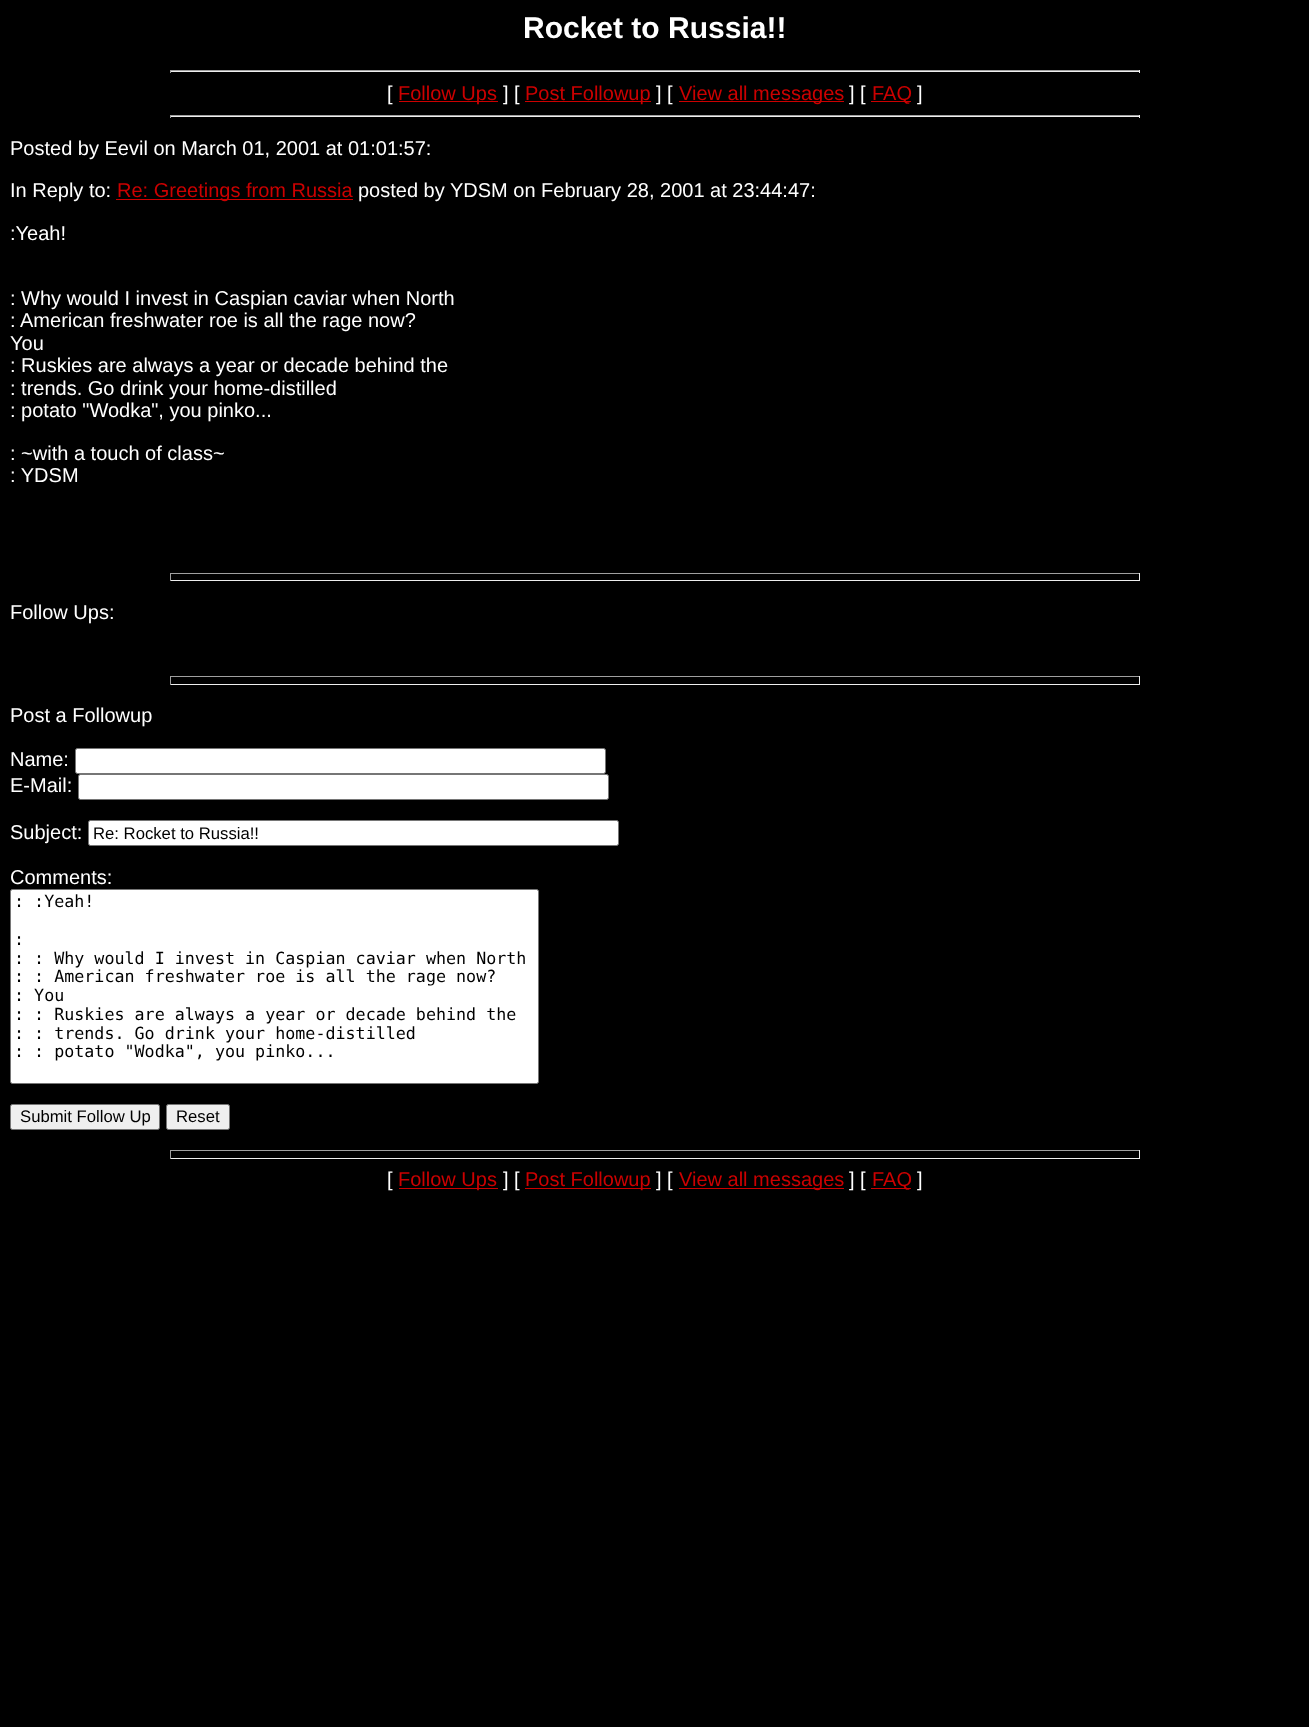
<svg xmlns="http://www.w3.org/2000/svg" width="1309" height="1727">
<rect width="100%" height="100%" fill="#000"/>
<text x="523" y="38" style="font-family:Liberation Sans;font-size:30px;font-weight:bold;fill:#fff">Rocket to Russia!!</text>
<rect x="170" y="70" width="970" height="1" fill="#9f9f9f"/>
<rect x="1139" y="70" width="1" height="3" fill="#eee"/>
<rect x="170" y="71" width="970" height="1" fill="#eee"/>
<rect x="170" y="70" width="1" height="3" fill="#9f9f9f"/>
<text x="387" y="100" style="font-family:Liberation Sans;font-size:20px;fill:#fff">[</text>
<rect x="399" y="101" width="99" height="1" fill="#c00"/>
<text x="398" y="100" style="font-family:Liberation Sans;font-size:20px;fill:#c00">Follow Ups</text>
<text x="503" y="100" style="font-family:Liberation Sans;font-size:20px;fill:#fff">] [</text>
<rect x="525" y="101" width="126" height="1" fill="#c00"/>
<text x="525" y="100" style="font-family:Liberation Sans;font-size:20px;fill:#c00">Post Followup</text>
<text x="656" y="100" style="font-family:Liberation Sans;font-size:20px;fill:#fff">] [</text>
<rect x="679" y="101" width="165" height="1" fill="#c00"/>
<text x="679" y="100" style="font-family:Liberation Sans;font-size:20px;fill:#c00">View all messages</text>
<text x="849" y="100" style="font-family:Liberation Sans;font-size:20px;fill:#fff">] [</text>
<rect x="871" y="101" width="40" height="1" fill="#c00"/>
<text x="872" y="100" style="font-family:Liberation Sans;font-size:20px;fill:#c00">FAQ</text>
<text x="917" y="100" style="font-family:Liberation Sans;font-size:20px;fill:#fff">]</text>
<rect x="170" y="115" width="970" height="1" fill="#9f9f9f"/>
<rect x="1139" y="115" width="1" height="3" fill="#eee"/>
<rect x="170" y="116" width="970" height="1" fill="#eee"/>
<rect x="170" y="115" width="1" height="3" fill="#9f9f9f"/>
<text x="10" y="155" style="font-family:Liberation Sans;font-size:20px;fill:#fff">Posted by Eevil on March 01, 2001 at 01:01:57:</text>
<text x="10" y="197" style="font-family:Liberation Sans;font-size:20px;fill:#fff">In Reply to:</text>
<rect x="116" y="199" width="237" height="1" fill="#c00"/>
<text x="117" y="197" style="font-family:Liberation Sans;font-size:20px;fill:#c00">Re: Greetings from Russia</text>
<text x="358" y="197" style="font-family:Liberation Sans;font-size:20px;fill:#fff">posted by YDSM on February 28, 2001 at 23:44:47:</text>
<text x="10" y="240" style="font-family:Liberation Sans;font-size:20px;fill:#fff">:Yeah!</text>
<text x="10" y="305" style="font-family:Liberation Sans;font-size:20px;fill:#fff">: Why would I invest in Caspian caviar when North</text>
<text x="10" y="327" style="font-family:Liberation Sans;font-size:20px;fill:#fff">: American freshwater roe is all the rage now?</text>
<text x="10" y="350" style="font-family:Liberation Sans;font-size:20px;fill:#fff">You</text>
<text x="10" y="372" style="font-family:Liberation Sans;font-size:20px;fill:#fff">: Ruskies are always a year or decade behind the</text>
<text x="10" y="395" style="font-family:Liberation Sans;font-size:20px;fill:#fff">: trends. Go drink your home-distilled</text>
<text x="10" y="417" style="font-family:Liberation Sans;font-size:20px;fill:#fff">: potato "Wodka", you pinko...</text>
<text x="10" y="460" style="font-family:Liberation Sans;font-size:20px;fill:#fff">: ~with a touch of class~</text>
<text x="10" y="482" style="font-family:Liberation Sans;font-size:20px;fill:#fff">: YDSM</text>
<rect x="170" y="573" width="970" height="1" fill="#9f9f9f"/>
<rect x="1139" y="573" width="1" height="8" fill="#eee"/>
<rect x="170" y="580" width="970" height="1" fill="#eee"/>
<rect x="170" y="573" width="1" height="8" fill="#9f9f9f"/>
<text x="10" y="619" style="font-family:Liberation Sans;font-size:20px;fill:#fff">Follow Ups:</text>
<rect x="170" y="676" width="970" height="1" fill="#9f9f9f"/>
<rect x="1139" y="676" width="1" height="9" fill="#eee"/>
<rect x="170" y="684" width="970" height="1" fill="#eee"/>
<rect x="170" y="676" width="1" height="9" fill="#9f9f9f"/>
<text x="10" y="722" style="font-family:Liberation Sans;font-size:20px;fill:#fff">Post a Followup</text>
<text x="10" y="766" style="font-family:Liberation Sans;font-size:20px;fill:#fff">Name:</text>
<rect x="75.5" y="748.5" width="530" height="25" rx="2" fill="#fff" stroke="#767676"/>
<text x="10" y="792" style="font-family:Liberation Sans;font-size:20px;fill:#fff">E-Mail:</text>
<rect x="78.5" y="774.5" width="530" height="25" rx="2" fill="#fff" stroke="#767676"/>
<text x="10" y="839" style="font-family:Liberation Sans;font-size:20px;fill:#fff">Subject:</text>
<rect x="88.5" y="820.5" width="530" height="25" rx="2" fill="#fff" stroke="#767676"/>
<text x="93" y="839" style="font-family:Liberation Sans;font-size:16.7px;fill:#000">Re: Rocket to Russia!!</text>
<text x="10" y="884" style="font-family:Liberation Sans;font-size:20px;fill:#fff">Comments:</text>
<rect x="10.5" y="889.5" width="528" height="194" rx="2" fill="#fff" stroke="#767676"/>
<text x="14" y="907" style="font-family:DejaVu Sans Mono;font-size:16.7px;fill:#000">: :Yeah!</text>
<text x="14" y="945" style="font-family:DejaVu Sans Mono;font-size:16.7px;fill:#000">:</text>
<text x="14" y="964" style="font-family:DejaVu Sans Mono;font-size:16.7px;fill:#000">: : Why would I invest in Caspian caviar when North</text>
<text x="14" y="982" style="font-family:DejaVu Sans Mono;font-size:16.7px;fill:#000">: : American freshwater roe is all the rage now?</text>
<text x="14" y="1001" style="font-family:DejaVu Sans Mono;font-size:16.7px;fill:#000">: You</text>
<text x="14" y="1020" style="font-family:DejaVu Sans Mono;font-size:16.7px;fill:#000">: : Ruskies are always a year or decade behind the</text>
<text x="14" y="1039" style="font-family:DejaVu Sans Mono;font-size:16.7px;fill:#000">: : trends. Go drink your home-distilled</text>
<text x="14" y="1057" style="font-family:DejaVu Sans Mono;font-size:16.7px;fill:#000">: : potato "Wodka", you pinko...</text>
<rect x="10.5" y="1104.5" width="149" height="25" rx="2" fill="#efefef" stroke="#767676"/>
<text x="20" y="1122" style="font-family:Liberation Sans;font-size:16.7px;fill:#000">Submit Follow Up</text>
<rect x="166.5" y="1104.5" width="63" height="25" rx="2" fill="#efefef" stroke="#767676"/>
<text x="176" y="1122" style="font-family:Liberation Sans;font-size:16.7px;fill:#000">Reset</text>
<rect x="170" y="1150" width="970" height="1" fill="#9f9f9f"/>
<rect x="1139" y="1150" width="1" height="9" fill="#eee"/>
<rect x="170" y="1158" width="970" height="1" fill="#eee"/>
<rect x="170" y="1150" width="1" height="9" fill="#9f9f9f"/>
<text x="387" y="1186" style="font-family:Liberation Sans;font-size:20px;fill:#fff">[</text>
<rect x="399" y="1188" width="99" height="1" fill="#c00"/>
<text x="398" y="1186" style="font-family:Liberation Sans;font-size:20px;fill:#c00">Follow Ups</text>
<text x="503" y="1186" style="font-family:Liberation Sans;font-size:20px;fill:#fff">] [</text>
<rect x="525" y="1188" width="126" height="1" fill="#c00"/>
<text x="525" y="1186" style="font-family:Liberation Sans;font-size:20px;fill:#c00">Post Followup</text>
<text x="656" y="1186" style="font-family:Liberation Sans;font-size:20px;fill:#fff">] [</text>
<rect x="679" y="1188" width="165" height="1" fill="#c00"/>
<text x="679" y="1186" style="font-family:Liberation Sans;font-size:20px;fill:#c00">View all messages</text>
<text x="849" y="1186" style="font-family:Liberation Sans;font-size:20px;fill:#fff">] [</text>
<rect x="871" y="1188" width="40" height="1" fill="#c00"/>
<text x="872" y="1186" style="font-family:Liberation Sans;font-size:20px;fill:#c00">FAQ</text>
<text x="917" y="1186" style="font-family:Liberation Sans;font-size:20px;fill:#fff">]</text>
</svg>
